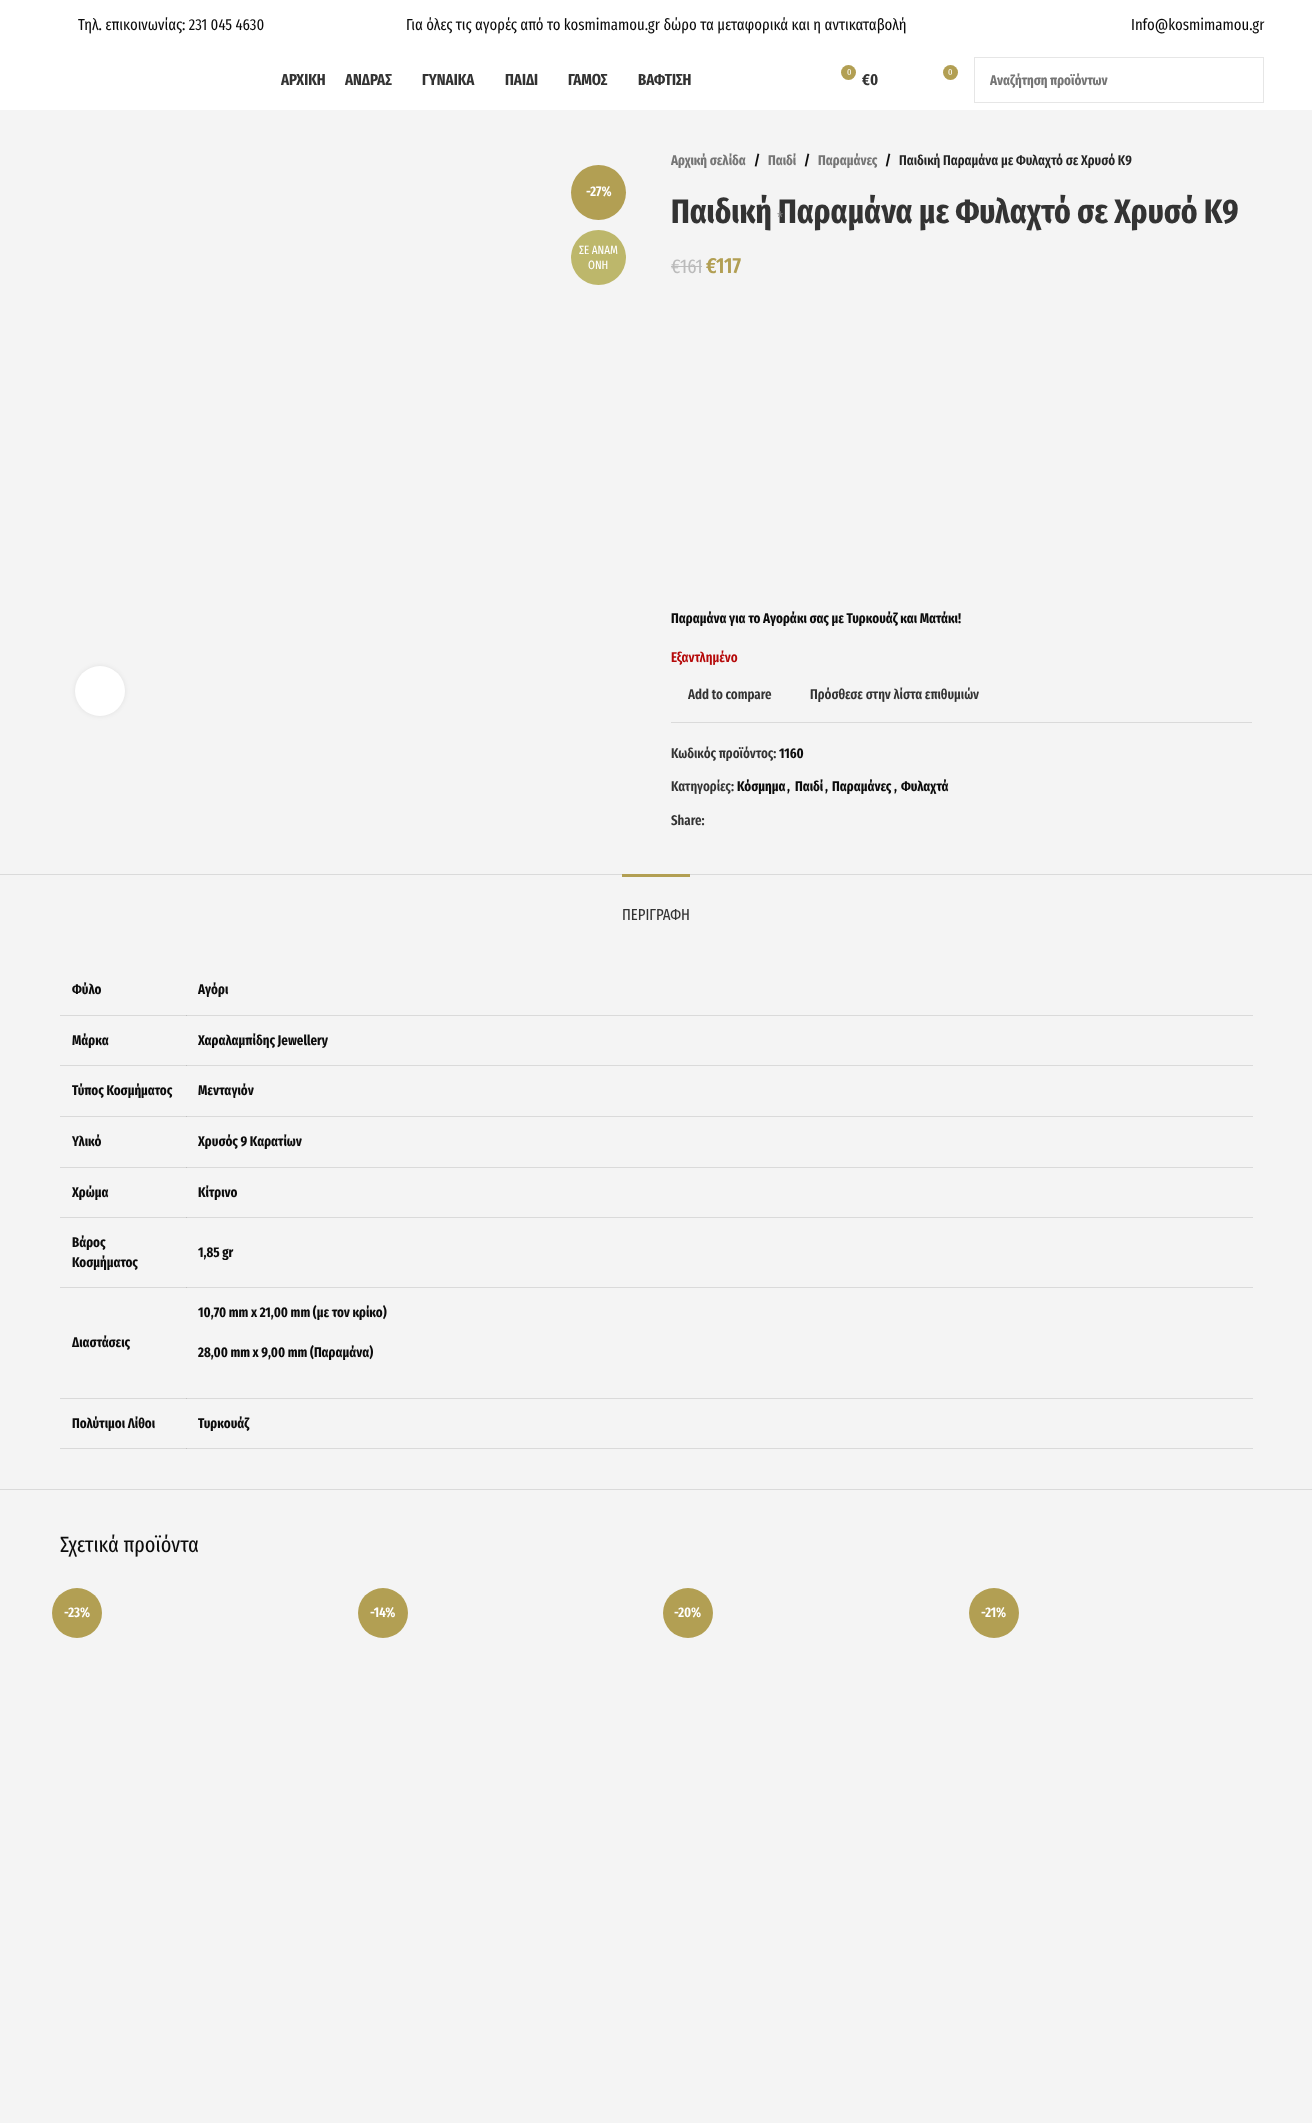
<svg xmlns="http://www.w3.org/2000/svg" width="1312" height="2123">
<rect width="100%" height="100%" fill="#fff"/>
<text x="78" y="30" style="font-family:Fira Sans Extra Condensed;font-size:16px;fill:#0c0c0c">Τηλ. επικοινωνίας: 231 045 4630</text>
<text x="406" y="30" style="font-family:Fira Sans Extra Condensed;font-size:16px;fill:#0c0c0c">Για όλες τις αγορές από το kosmimamou.gr δώρο τα μεταφορικά και η αντικαταβολή</text>
<text x="1131" y="30" style="font-family:Fira Sans Extra Condensed;font-size:16px;fill:#0c0c0c">Info@kosmimamou.gr</text>
<text x="281" y="85" style="font-family:Fira Sans Extra Condensed;font-size:16px;font-weight:bold;fill:#333">ΑΡΧΙΚΗ</text>
<text x="345" y="85" style="font-family:Fira Sans Extra Condensed;font-size:16px;font-weight:bold;fill:#333">ΑΝΔΡΑΣ</text>
<text x="422" y="85" style="font-family:Fira Sans Extra Condensed;font-size:16px;font-weight:bold;fill:#333">ΓΥΝΑΙΚΑ</text>
<text x="505" y="85" style="font-family:Fira Sans Extra Condensed;font-size:16px;font-weight:bold;fill:#333">ΠΑΙΔΙ</text>
<text x="568" y="85" style="font-family:Fira Sans Extra Condensed;font-size:16px;font-weight:bold;fill:#333">ΓΑΜΟΣ</text>
<text x="638" y="85" style="font-family:Fira Sans Extra Condensed;font-size:16px;font-weight:bold;fill:#333">ΒΑΦΤΙΣΗ</text>
<circle cx="848.5" cy="72.5" r="7.5" fill="#b29f53"/>
<text x="847" y="75" style="font-family:Fira Sans Extra Condensed;font-size:9px;fill:#fff">0</text>
<text x="862" y="85" style="font-family:Fira Sans Extra Condensed;font-size:16px;font-weight:bold;fill:#333">€</text>
<text x="870" y="85" style="font-family:Fira Sans Extra Condensed;font-size:16px;font-weight:bold;fill:#333">0</text>
<circle cx="950.5" cy="72.5" r="7.5" fill="#b29f53"/>
<text x="948" y="75" style="font-family:Fira Sans Extra Condensed;font-size:9px;fill:#fff">0</text>
<rect x="974.5" y="57.5" width="289" height="45" fill="none" stroke="#e6e6e6"/>
<text x="990" y="85" style="font-family:Fira Sans Extra Condensed;font-size:14px;font-weight:bold;fill:#767676">Αναζήτηση προϊόντων</text>
<rect y="110" width="1312" height="2013" fill="#f4f4f4"/>
<text x="671" y="223" style="font-family:Fira Sans Extra Condensed;font-size:34px;font-weight:bold;fill:#333">Παιδική Παραμάνα με Φυλαχτό σε Χρυσό Κ9</text>
<text x="777" y="223" style="font-family:Fira Sans Extra Condensed;font-size:16px;fill:#858585">*</text>
<rect x="60" y="1015" width="127" height="1" fill="#d9d9d9"/>
<rect x="60" y="1065" width="127" height="1" fill="#d9d9d9"/>
<rect x="60" y="1116" width="127" height="1" fill="#d9d9d9"/>
<rect x="60" y="1167" width="127" height="1" fill="#d9d9d9"/>
<rect x="60" y="1217" width="127" height="1" fill="#d9d9d9"/>
<rect x="60" y="1287" width="127" height="1" fill="#d9d9d9"/>
<rect x="60" y="1398" width="127" height="1" fill="#d9d9d9"/>
<rect x="60" y="1448" width="127" height="1" fill="#d9d9d9"/>
<circle cx="598.5" cy="192.5" r="27.5" fill="#b29f53"/>
<text x="586" y="196" style="font-family:Fira Sans Extra Condensed;font-size:14px;font-weight:600;fill:#fff">-27%</text>
<circle cx="598.5" cy="257.5" r="27.5" fill="#bdb76b"/>
<text x="579" y="254" style="font-family:Fira Sans Extra Condensed;font-size:12px;fill:#fff">ΣΕ ΑΝΑΜ</text>
<text x="588" y="269" style="font-family:Fira Sans Extra Condensed;font-size:12px;fill:#fff">ΟΝΗ</text>
<rect x="75" y="666" width="50" height="50" rx="25" fill="#00000014" filter="blur(2.5px)"/>
<circle cx="100" cy="691" r="25" fill="#fff"/>
<text x="671" y="165" style="font-family:Fira Sans Extra Condensed;font-size:14px;font-weight:bold;fill:#767676">Αρχική σελίδα</text>
<text x="754" y="165" style="font-family:Fira Sans Extra Condensed;font-size:14px;font-weight:bold;fill:#0c0c0c">/</text>
<text x="768" y="165" style="font-family:Fira Sans Extra Condensed;font-size:14px;font-weight:bold;fill:#767676">Παιδί</text>
<text x="804" y="165" style="font-family:Fira Sans Extra Condensed;font-size:14px;font-weight:bold;fill:#0c0c0c">/</text>
<text x="818" y="165" style="font-family:Fira Sans Extra Condensed;font-size:14px;font-weight:bold;fill:#767676">Παραμάνες</text>
<text x="885" y="165" style="font-family:Fira Sans Extra Condensed;font-size:14px;font-weight:bold;fill:#0c0c0c">/</text>
<text x="899" y="165" style="font-family:Fira Sans Extra Condensed;font-size:14px;font-weight:600;fill:#242424">Παιδική Παραμάνα με Φυλαχτό σε Χρυσό Κ9</text>
<text x="671" y="273" style="font-family:Fira Sans Extra Condensed;font-size:20px;fill:#bbb">€</text>
<rect x="671" y="266" width="9" height="1" fill="#bbb"/>
<rect x="680" y="266" width="22" height="1" fill="#bbb"/>
<text x="680" y="273" style="font-family:Fira Sans Extra Condensed;font-size:20px;fill:#bbb">161</text>
<text x="706" y="273" style="font-family:Fira Sans Extra Condensed;font-size:22px;font-weight:600;fill:#b29f53">€</text>
<text x="716" y="273" style="font-family:Fira Sans Extra Condensed;font-size:22px;font-weight:600;fill:#b29f53">117</text>
<text x="671" y="623" style="font-family:Fira Sans Extra Condensed;font-size:14px;font-weight:bold;fill:#0c0c0c">Παραμάνα για το Αγοράκι σας με Τυρκουάζ και Ματάκι!</text>
<text x="671" y="662" style="font-family:Fira Sans Extra Condensed;font-size:14px;font-weight:600;fill:#b50808">Εξαντλημένο</text>
<text x="688" y="699" style="font-family:Fira Sans Extra Condensed;font-size:14px;font-weight:600;fill:#333">Add to compare</text>
<text x="810" y="699" style="font-family:Fira Sans Extra Condensed;font-size:14px;font-weight:600;fill:#333">Πρόσθεσε στην λίστα επιθυμιών</text>
<rect x="671" y="722" width="581" height="1" fill="#dadada"/>
<text x="671" y="758" style="font-family:Fira Sans Extra Condensed;font-size:14px;font-weight:600;fill:#333">Κωδικός προϊόντος:</text>
<text x="779" y="758" style="font-family:Fira Sans Extra Condensed;font-size:14px;font-weight:bold;fill:#0c0c0c">1160</text>
<text x="671" y="791" style="font-family:Fira Sans Extra Condensed;font-size:14px;font-weight:600;fill:#333">Κατηγορίες:</text>
<text x="737" y="791" style="font-family:Fira Sans Extra Condensed;font-size:14px;font-weight:bold;fill:#0c0c0c">Κόσμημα</text>
<text x="787" y="791" style="font-family:Fira Sans Extra Condensed;font-size:14px;font-weight:bold;fill:#0c0c0c">,</text>
<text x="795" y="791" style="font-family:Fira Sans Extra Condensed;font-size:14px;font-weight:bold;fill:#0c0c0c">Παιδί</text>
<text x="825" y="791" style="font-family:Fira Sans Extra Condensed;font-size:14px;font-weight:bold;fill:#0c0c0c">,</text>
<text x="832" y="791" style="font-family:Fira Sans Extra Condensed;font-size:14px;font-weight:bold;fill:#0c0c0c">Παραμάνες</text>
<text x="894" y="791" style="font-family:Fira Sans Extra Condensed;font-size:14px;font-weight:bold;fill:#0c0c0c">,</text>
<text x="901" y="791" style="font-family:Fira Sans Extra Condensed;font-size:14px;font-weight:bold;fill:#0c0c0c">Φυλαχτά</text>
<text x="671" y="825" style="font-family:Fira Sans Extra Condensed;font-size:14px;font-weight:600;fill:#333">Share:</text>
<rect y="874" width="1312" height="1" fill="#dadada"/>
<rect y="1489" width="1312" height="1" fill="#dadada"/>
<rect x="622" y="874" width="68" height="3" fill="#b29f53"/>
<text x="622" y="920" style="font-family:Fira Sans Extra Condensed;font-size:16px;fill:#333">ΠΕΡΙΓΡΑΦΗ</text>
<text x="72" y="994" style="font-family:Fira Sans Extra Condensed;font-size:14px;font-weight:bold;fill:#0c0c0c">Φύλο</text>
<rect x="186" y="1015" width="1067" height="1" fill="#dadada"/>
<rect x="186" y="1015" width="1" height="1" fill="#c2c2c2"/>
<text x="198" y="994" style="font-family:Fira Sans Extra Condensed;font-size:14px;font-weight:bold;fill:#0c0c0c">Αγόρι</text>
<text x="72" y="1045" style="font-family:Fira Sans Extra Condensed;font-size:14px;font-weight:bold;fill:#0c0c0c">Μάρκα</text>
<rect x="186" y="1065" width="1067" height="1" fill="#dadada"/>
<rect x="186" y="1065" width="1" height="1" fill="#c2c2c2"/>
<text x="198" y="1045" style="font-family:Fira Sans Extra Condensed;font-size:14px;font-weight:bold;fill:#0c0c0c">Χαραλαμπίδης Jewellery</text>
<text x="72" y="1095" style="font-family:Fira Sans Extra Condensed;font-size:14px;font-weight:bold;fill:#0c0c0c">Τύπος Κοσμήματος</text>
<rect x="186" y="1116" width="1067" height="1" fill="#dadada"/>
<rect x="186" y="1116" width="1" height="1" fill="#c2c2c2"/>
<text x="198" y="1095" style="font-family:Fira Sans Extra Condensed;font-size:14px;font-weight:bold;fill:#0c0c0c">Μενταγιόν</text>
<text x="72" y="1146" style="font-family:Fira Sans Extra Condensed;font-size:14px;font-weight:bold;fill:#0c0c0c">Υλικό</text>
<rect x="186" y="1167" width="1067" height="1" fill="#dadada"/>
<rect x="186" y="1167" width="1" height="1" fill="#c2c2c2"/>
<text x="198" y="1146" style="font-family:Fira Sans Extra Condensed;font-size:14px;font-weight:bold;fill:#0c0c0c">Χρυσός 9 Καρατίων</text>
<text x="72" y="1197" style="font-family:Fira Sans Extra Condensed;font-size:14px;font-weight:bold;fill:#0c0c0c">Χρώμα</text>
<rect x="186" y="1217" width="1067" height="1" fill="#dadada"/>
<rect x="186" y="1217" width="1" height="1" fill="#c2c2c2"/>
<text x="198" y="1197" style="font-family:Fira Sans Extra Condensed;font-size:14px;font-weight:bold;fill:#0c0c0c">Κίτρινο</text>
<text x="72" y="1247" style="font-family:Fira Sans Extra Condensed;font-size:14px;font-weight:bold;fill:#0c0c0c">Βάρος</text>
<text x="72" y="1267" style="font-family:Fira Sans Extra Condensed;font-size:14px;font-weight:bold;fill:#0c0c0c">Κοσμήματος</text>
<rect x="186" y="1287" width="1067" height="1" fill="#dadada"/>
<rect x="186" y="1287" width="1" height="1" fill="#c2c2c2"/>
<text x="198" y="1257" style="font-family:Fira Sans Extra Condensed;font-size:14px;font-weight:bold;fill:#0c0c0c">1,85 gr</text>
<text x="72" y="1347" style="font-family:Fira Sans Extra Condensed;font-size:14px;font-weight:bold;fill:#0c0c0c">Διαστάσεις</text>
<rect x="186" y="1398" width="1067" height="1" fill="#dadada"/>
<rect x="186" y="1398" width="1" height="1" fill="#c2c2c2"/>
<text x="198" y="1317" style="font-family:Fira Sans Extra Condensed;font-size:14px;font-weight:bold;fill:#0c0c0c">10,70 mm x 21,00 mm (με τον κρίκο)</text>
<text x="198" y="1357" style="font-family:Fira Sans Extra Condensed;font-size:14px;font-weight:bold;fill:#0c0c0c">28,00 mm x 9,00 mm (Παραμάνα)</text>
<text x="72" y="1428" style="font-family:Fira Sans Extra Condensed;font-size:14px;font-weight:bold;fill:#0c0c0c">Πολύτιμοι Λίθοι</text>
<rect x="186" y="1448" width="1067" height="1" fill="#dadada"/>
<rect x="186" y="1448" width="1" height="1" fill="#c2c2c2"/>
<text x="198" y="1428" style="font-family:Fira Sans Extra Condensed;font-size:14px;font-weight:bold;fill:#0c0c0c">Τυρκουάζ</text>
<text x="60" y="1552" style="font-family:Fira Sans Extra Condensed;font-size:22px;fill:#0c0c0c">Σχετικά προϊόντα</text>
<circle cx="77" cy="1613" r="25" fill="#b29f53"/>
<text x="64" y="1617" style="font-family:Fira Sans Extra Condensed;font-size:14px;font-weight:600;fill:#fff">-23%</text>
<circle cx="383" cy="1613" r="25" fill="#b29f53"/>
<text x="370" y="1617" style="font-family:Fira Sans Extra Condensed;font-size:14px;font-weight:600;fill:#fff">-14%</text>
<circle cx="688" cy="1613" r="25" fill="#b29f53"/>
<text x="674" y="1617" style="font-family:Fira Sans Extra Condensed;font-size:14px;font-weight:600;fill:#fff">-20%</text>
<circle cx="994" cy="1613" r="25" fill="#b29f53"/>
<text x="981" y="1617" style="font-family:Fira Sans Extra Condensed;font-size:14px;font-weight:600;fill:#fff">-21%</text>
</svg>
